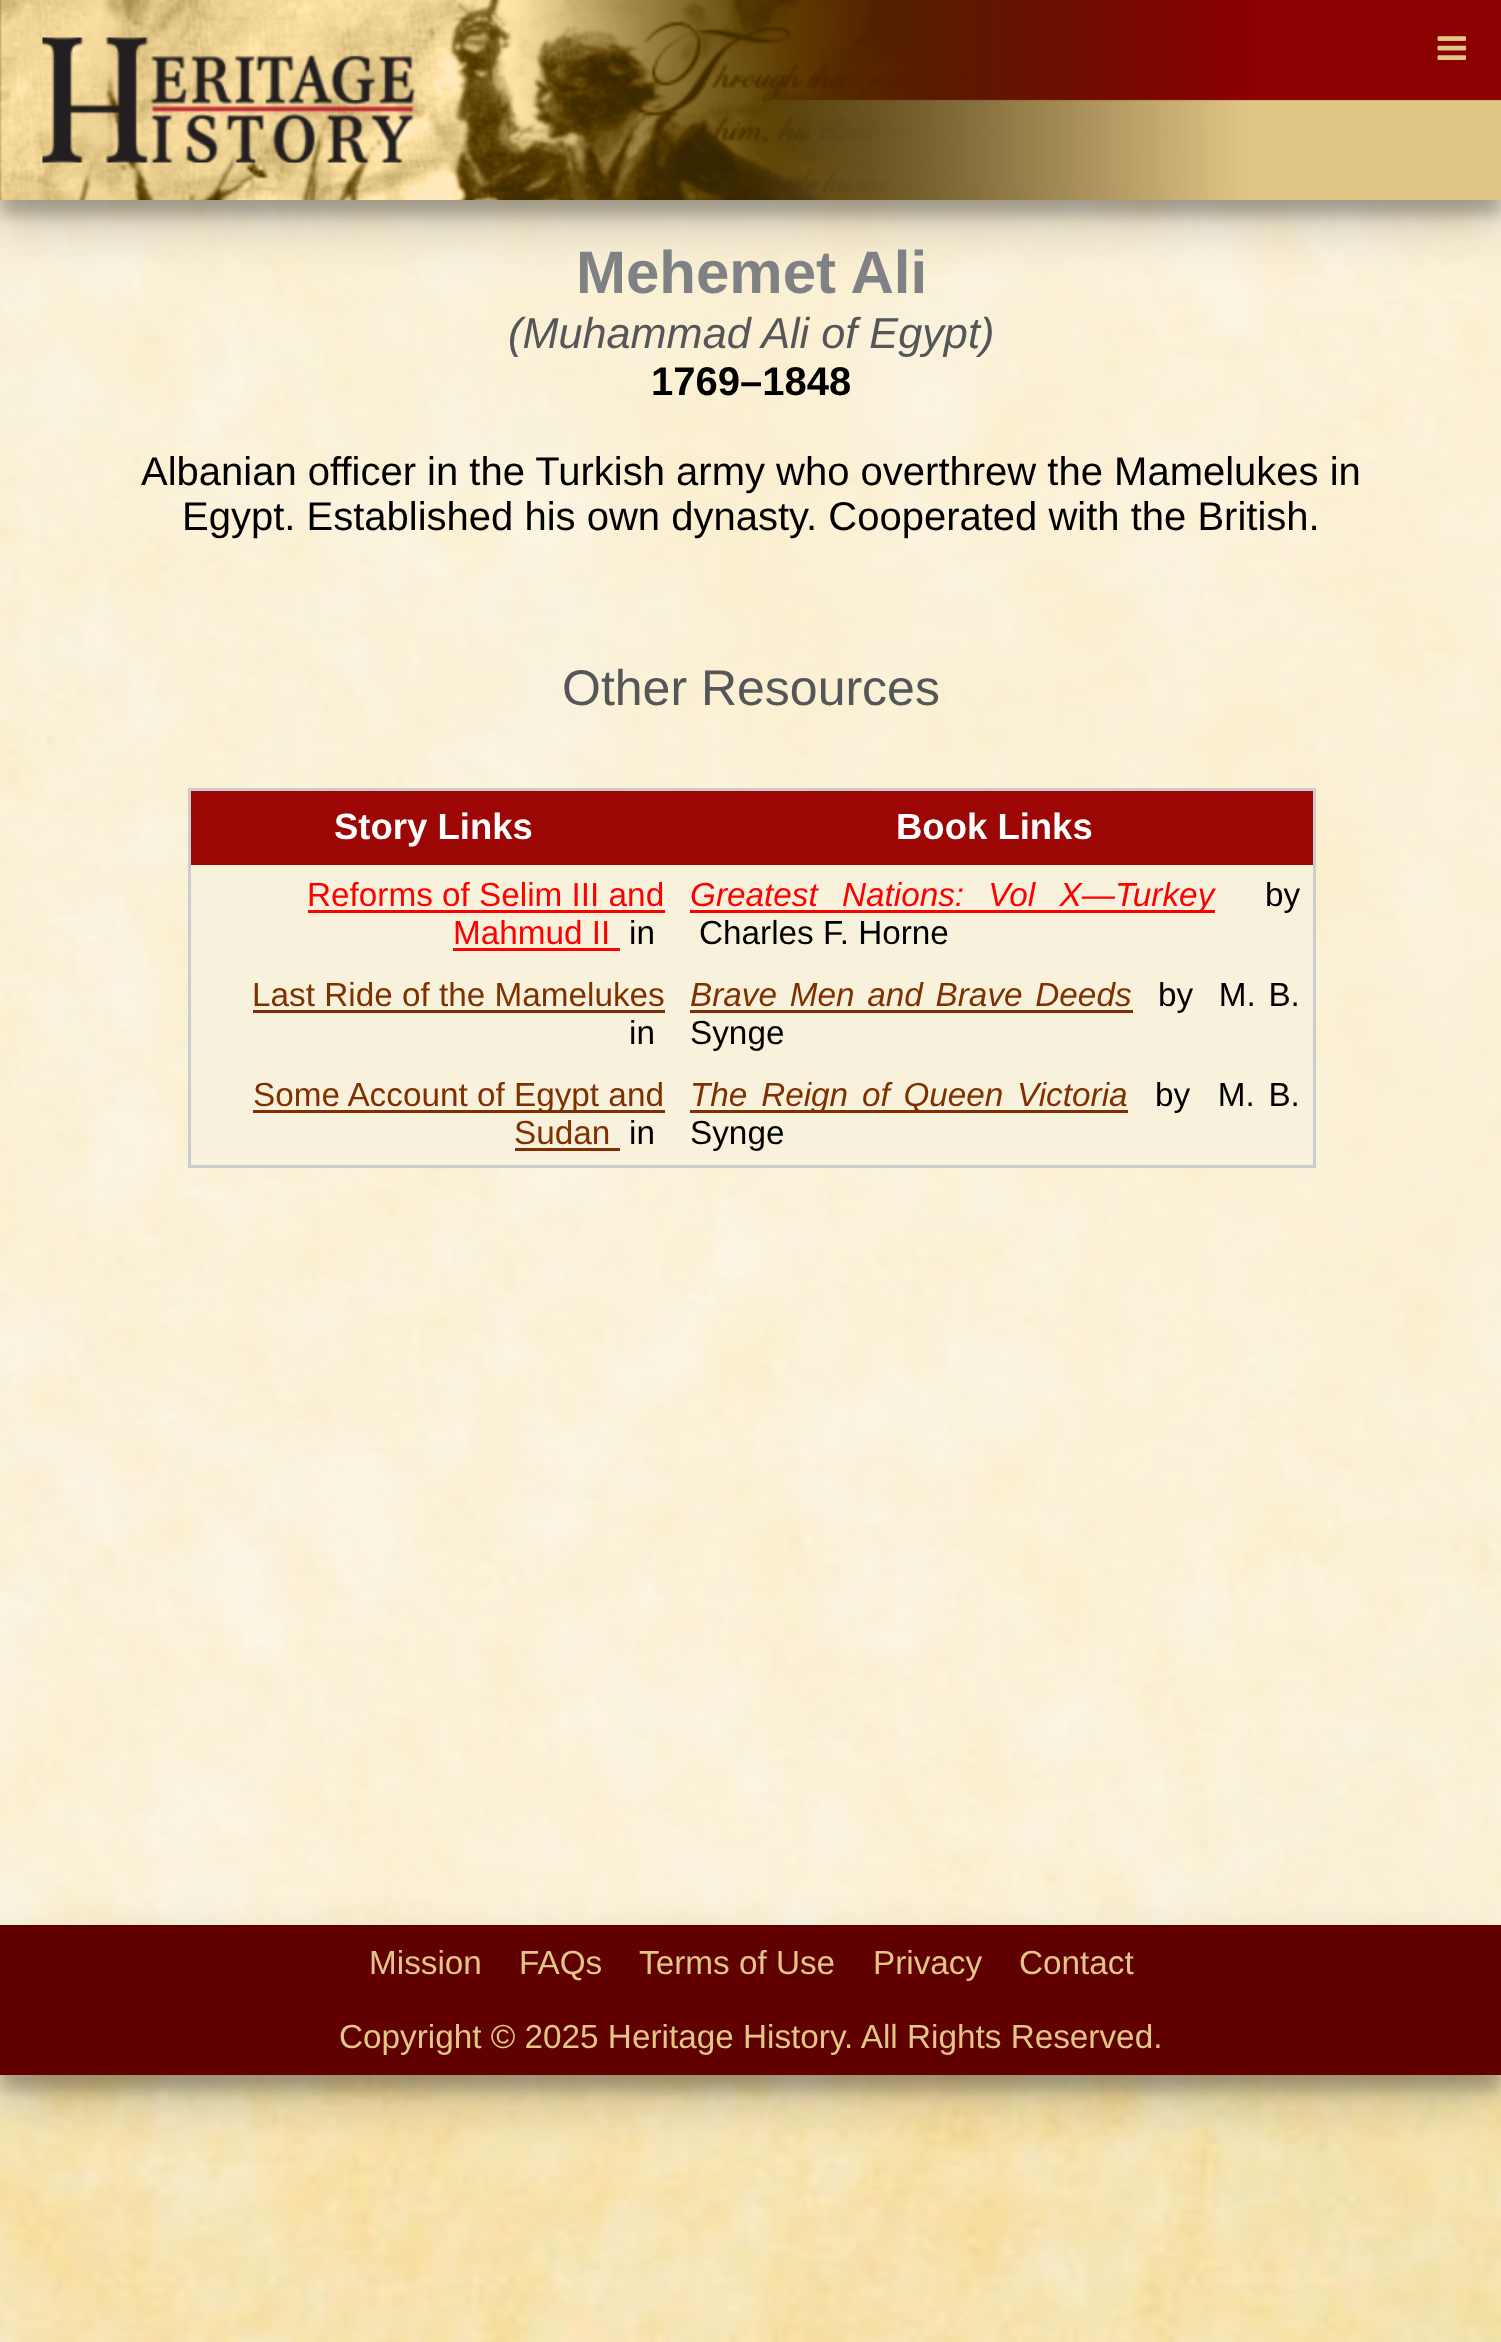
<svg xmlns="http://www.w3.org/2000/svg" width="1501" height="2342">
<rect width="100%" height="100%" fill="#fff"/>
<image x="0" y="200" width="1501" height="2142" href="media/1.png"/>
<rect y="200" width="1501" height="1725" fill="#ffffff80"/>
<rect y="15" width="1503" height="200" fill="#0000003b" filter="blur(7.5px)"/>
<rect y="25" width="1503" height="200" fill="#00000030" filter="blur(25px)"/>
<image x="0" y="0" width="1501" height="200" href="media/2.png"/>
<image x="1437" y="36" width="30" height="24" href="media/3.png"/>
<text x="576" y="293" style="font-family:Liberation Sans;font-size:60px;font-weight:bold;fill:#7f8184">Mehemet Ali</text>
<text x="508" y="348" style="font-family:Liberation Sans;font-size:43.25px;font-style:italic;fill:#545658">(Muhammad Ali of Egypt)</text>
<text x="651" y="395" style="font-family:Liberation Sans;font-size:40px;font-weight:bold;fill:#000">1769–1848</text>
<text x="141" y="485" style="font-family:Liberation Sans;font-size:40px;fill:#000">Albanian officer in the Turkish army who overthrew the Mamelukes in</text>
<text x="182" y="530" style="font-family:Liberation Sans;font-size:40px;fill:#000">Egypt. Established his own dynasty. Cooperated with the British.</text>
<text x="562" y="705" style="font-family:Liberation Sans;font-size:50px;fill:#545658">Other Resources</text>
<rect x="191" y="865" width="1122" height="300" fill="#f8f1db"/>
<rect x="188" y="788" width="1127" height="3" fill="#ccc"/>
<rect x="1313" y="788" width="3" height="380" fill="#ccc"/>
<rect x="188" y="1165" width="1127" height="3" fill="#ccc"/>
<rect x="188" y="788" width="3" height="380" fill="#ccc"/>
<rect x="191" y="791" width="1122" height="74" fill="#9c0604"/>
<text x="334" y="839" style="font-family:Liberation Sans;font-size:36.5px;font-weight:bold;fill:#fff">Story Links</text>
<text x="896" y="839" style="font-family:Liberation Sans;font-size:36.5px;font-weight:bold;fill:#fff">Book Links</text>
<text x="307" y="906" style="font-family:Liberation Sans;font-size:33.3px;fill:#f00">Reforms of Selim III and</text>
<rect x="308" y="910" width="357" height="3" fill="#f00"/>
<text x="453" y="944" style="font-family:Liberation Sans;font-size:33.3px;fill:#f00">Mahmud II</text>
<rect x="453" y="948" width="167" height="3" fill="#f00"/>
<text x="629" y="944" style="font-family:Liberation Sans;font-size:33.3px;fill:#000">in</text>
<rect x="690" y="910" width="525" height="3" fill="#f00"/>
<text x="690" y="906" word-spacing="15" style="font-family:Liberation Sans;font-size:33.3px;font-style:italic;fill:#f00">Greatest Nations: Vol X—Turkey</text>
<text x="1265" y="906" style="font-family:Liberation Sans;font-size:33.3px;fill:#000">by</text>
<text x="699" y="944" style="font-family:Liberation Sans;font-size:33.3px;fill:#000">Charles F. Horne</text>
<text x="252" y="1006" style="font-family:Liberation Sans;font-size:33.3px;fill:#803000">Last Ride of the Mamelukes</text>
<rect x="253" y="1010" width="412" height="3" fill="#803000"/>
<text x="629" y="1044" style="font-family:Liberation Sans;font-size:33.3px;fill:#000">in</text>
<text x="690" y="1006" word-spacing="3.5" style="font-family:Liberation Sans;font-size:33.3px;font-style:italic;fill:#803000">Brave Men and Brave Deeds</text>
<rect x="690" y="1010" width="443" height="3" fill="#803000"/>
<text x="1158" y="1006" word-spacing="3.5" style="font-family:Liberation Sans;font-size:33.3px;fill:#000" xml:space="preserve">by  M. B.</text>
<text x="690" y="1044" style="font-family:Liberation Sans;font-size:33.3px;fill:#000">Synge</text>
<rect x="253" y="1110" width="412" height="3" fill="#803000"/>
<text x="253" y="1106" style="font-family:Liberation Sans;font-size:33.3px;fill:#803000">Some Account of Egypt and</text>
<text x="514" y="1144" style="font-family:Liberation Sans;font-size:33.3px;fill:#803000">Sudan</text>
<rect x="515" y="1148" width="105" height="3" fill="#803000"/>
<text x="629" y="1144" style="font-family:Liberation Sans;font-size:33.3px;fill:#000">in</text>
<rect x="690" y="1110" width="438" height="3" fill="#803000"/>
<text x="690" y="1106" word-spacing="4.5" style="font-family:Liberation Sans;font-size:33.3px;font-style:italic;fill:#803000">The Reign of Queen Victoria</text>
<text x="1155" y="1106" word-spacing="4.5" style="font-family:Liberation Sans;font-size:33.3px;fill:#000" xml:space="preserve">by  M. B.</text>
<text x="690" y="1144" style="font-family:Liberation Sans;font-size:33.3px;fill:#000">Synge</text>
<rect y="1940" width="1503" height="150" fill="#0000003b" filter="blur(7.5px)"/>
<rect y="1950" width="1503" height="150" fill="#00000030" filter="blur(25px)"/>
<rect y="1925" width="1501" height="150" fill="#610000"/>
<text x="369" y="1974" style="font-family:Liberation Sans;font-size:33.3px;fill:#e2c688">Mission</text>
<text x="519" y="1974" style="font-family:Liberation Sans;font-size:33.3px;fill:#e2c688">FAQs</text>
<text x="639" y="1974" style="font-family:Liberation Sans;font-size:33.3px;fill:#e2c688">Terms of Use</text>
<text x="873" y="1974" style="font-family:Liberation Sans;font-size:33.3px;fill:#e2c688">Privacy</text>
<text x="1019" y="1974" style="font-family:Liberation Sans;font-size:33.3px;fill:#e2c688">Contact</text>
<text x="339" y="2048" style="font-family:Liberation Sans;font-size:33.3px;fill:#e2c688">Copyright © 2025 Heritage History. All Rights Reserved.</text>
</svg>
